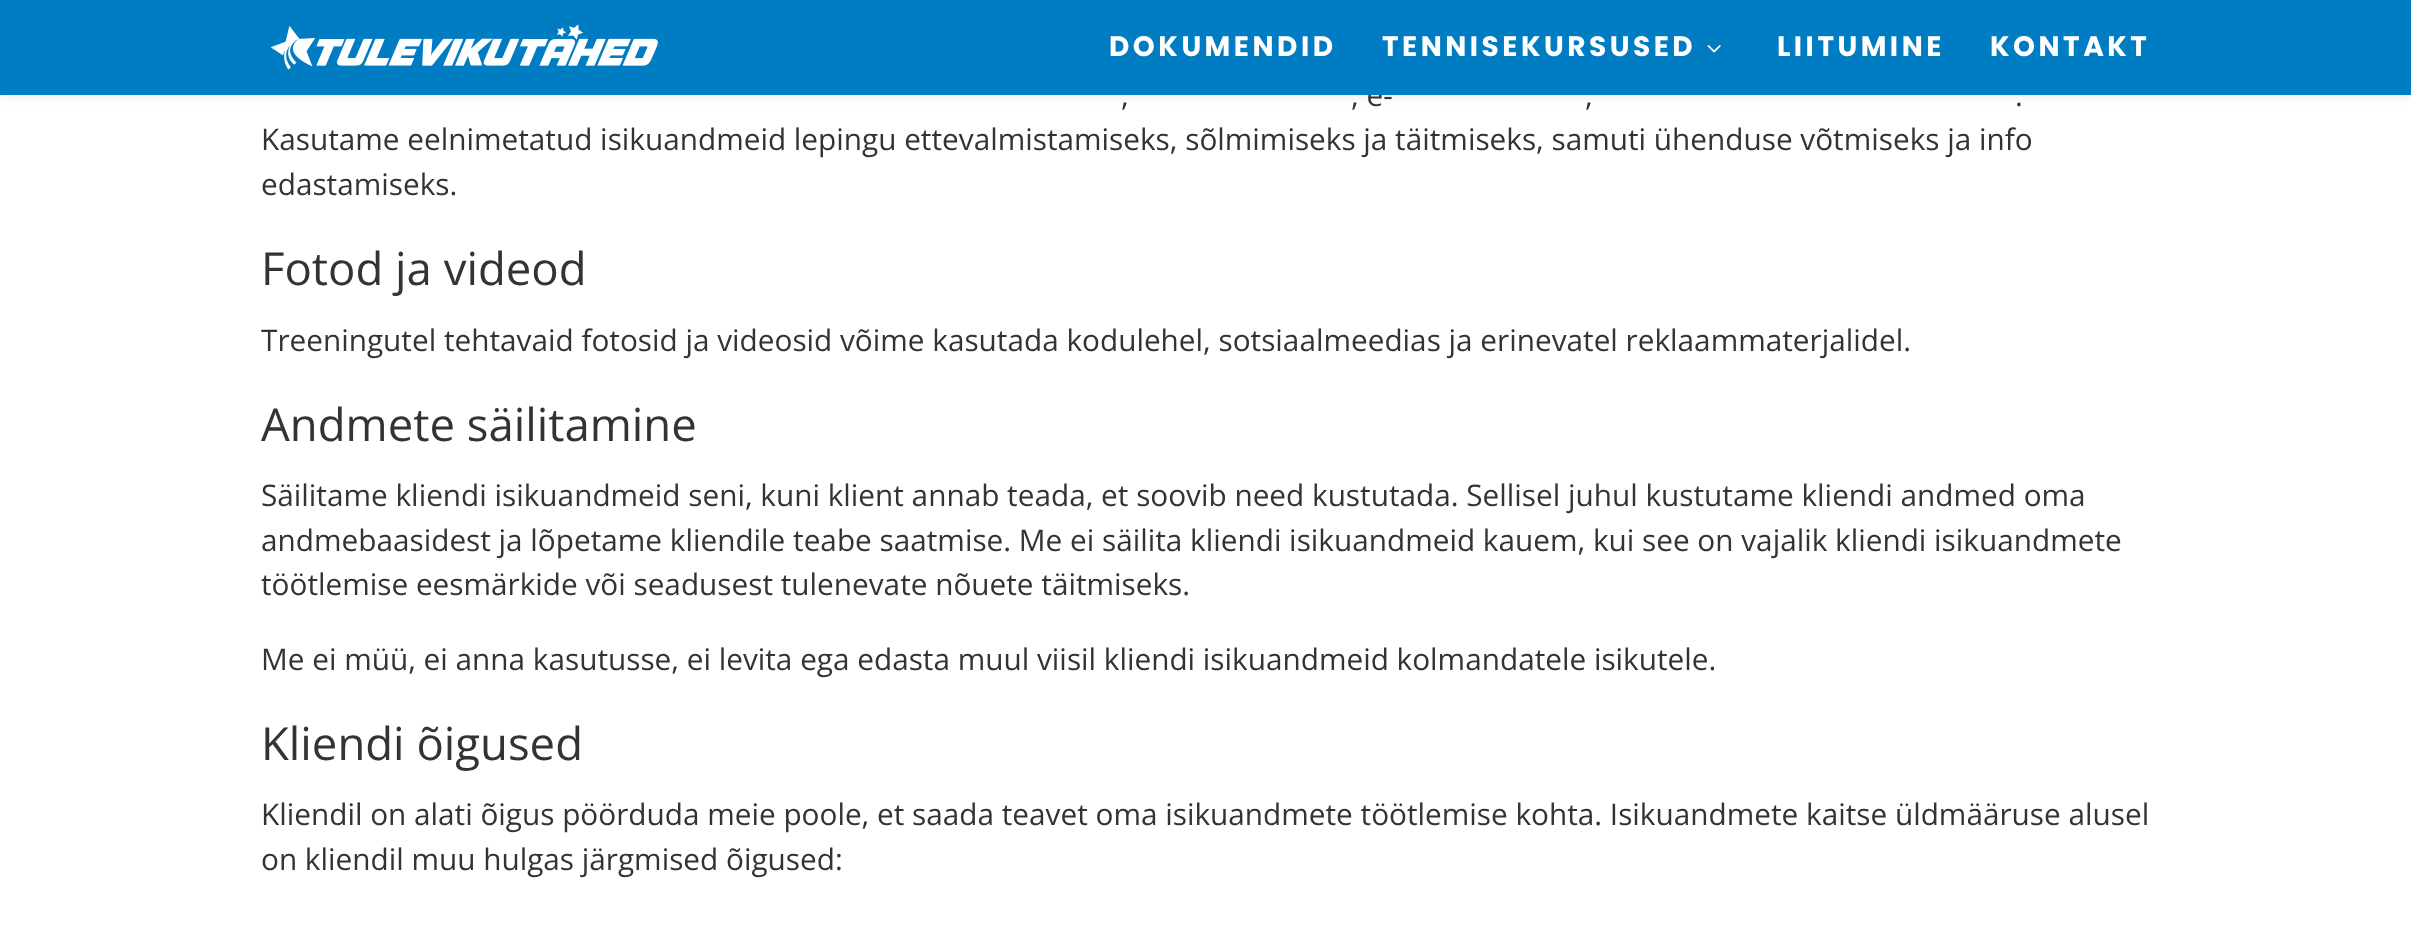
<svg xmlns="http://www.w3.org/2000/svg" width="2411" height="937">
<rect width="100%" height="100%" fill="#fff"/>
<rect width="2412" height="95" fill="#0000001a" filter="blur(6px)"/>
<text x="1351" y="106" style="font-family:Open Sans;font-size:29.75px;fill:#333">, e-</text>
<rect width="2411" height="95" fill="#007cc3"/>
<image x="270" y="24" width="388" height="46" href="media/1.png"/>
<text x="1109" y="56" style="font-family:Poppins;font-size:28px;font-weight:bold;letter-spacing:3.5px;fill:#fff">DOKUMENDID</text>
<text x="1382" y="56" style="font-family:Poppins;font-size:28px;font-weight:bold;letter-spacing:3.5px;fill:#fff">TENNISEKURSUSED</text>
<image x="1707" y="45" width="14" height="8" href="media/2.png"/>
<text x="1777" y="56" style="font-family:Poppins;font-size:28px;font-weight:bold;letter-spacing:3.5px;fill:#fff">LIITUMINE</text>
<text x="1990" y="56" style="font-family:Poppins;font-size:28px;font-weight:bold;letter-spacing:3.5px;fill:#fff">KONTAKT</text>
<text x="1121" y="106" style="font-family:Open Sans;font-size:29.75px;fill:#333">,</text>
<text x="1585" y="106" style="font-family:Open Sans;font-size:29.75px;fill:#333">,</text>
<text x="2015" y="106" style="font-family:Open Sans;font-size:29.75px;fill:#333">.</text>
<text x="261" y="150" style="font-family:Open Sans;font-size:29.75px;fill:#333">Kasutame eelnimetatud isikuandmeid lepingu ettevalmistamiseks, sõlmimiseks ja täitmiseks, samuti ühenduse võtmiseks ja info</text>
<text x="261" y="195" style="font-family:Open Sans;font-size:29.75px;fill:#333">edastamiseks.</text>
<text x="261" y="285" style="font-family:Open Sans;font-size:45.5px;fill:#333">Fotod ja videod</text>
<text x="261" y="351" style="font-family:Open Sans;font-size:29.75px;fill:#333">Treeningutel tehtavaid fotosid ja videosid võime kasutada kodulehel, sotsiaalmeedias ja erinevatel reklaammaterjalidel.</text>
<text x="261" y="441" style="font-family:Open Sans;font-size:45.5px;fill:#333">Andmete säilitamine</text>
<text x="261" y="506" style="font-family:Open Sans;font-size:29.75px;fill:#333">Säilitame kliendi isikuandmeid seni, kuni klient annab teada, et soovib need kustutada. Sellisel juhul kustutame kliendi andmed oma</text>
<text x="261" y="551" style="font-family:Open Sans;font-size:29.75px;fill:#333">andmebaasidest ja lõpetame kliendile teabe saatmise. Me ei säilita kliendi isikuandmeid kauem, kui see on vajalik kliendi isikuandmete</text>
<text x="261" y="595" style="font-family:Open Sans;font-size:29.75px;fill:#333">töötlemise eesmärkide või seadusest tulenevate nõuete täitmiseks.</text>
<text x="261" y="670" style="font-family:Open Sans;font-size:29.75px;fill:#333">Me ei müü, ei anna kasutusse, ei levita ega edasta muul viisil kliendi isikuandmeid kolmandatele isikutele.</text>
<text x="261" y="760" style="font-family:Open Sans;font-size:45.5px;fill:#333">Kliendi õigused</text>
<text x="261" y="825" style="font-family:Open Sans;font-size:29.75px;fill:#333">Kliendil on alati õigus pöörduda meie poole, et saada teavet oma isikuandmete töötlemise kohta. Isikuandmete kaitse üldmääruse alusel</text>
<text x="261" y="870" style="font-family:Open Sans;font-size:29.75px;fill:#333">on kliendil muu hulgas järgmised õigused:</text>
</svg>
